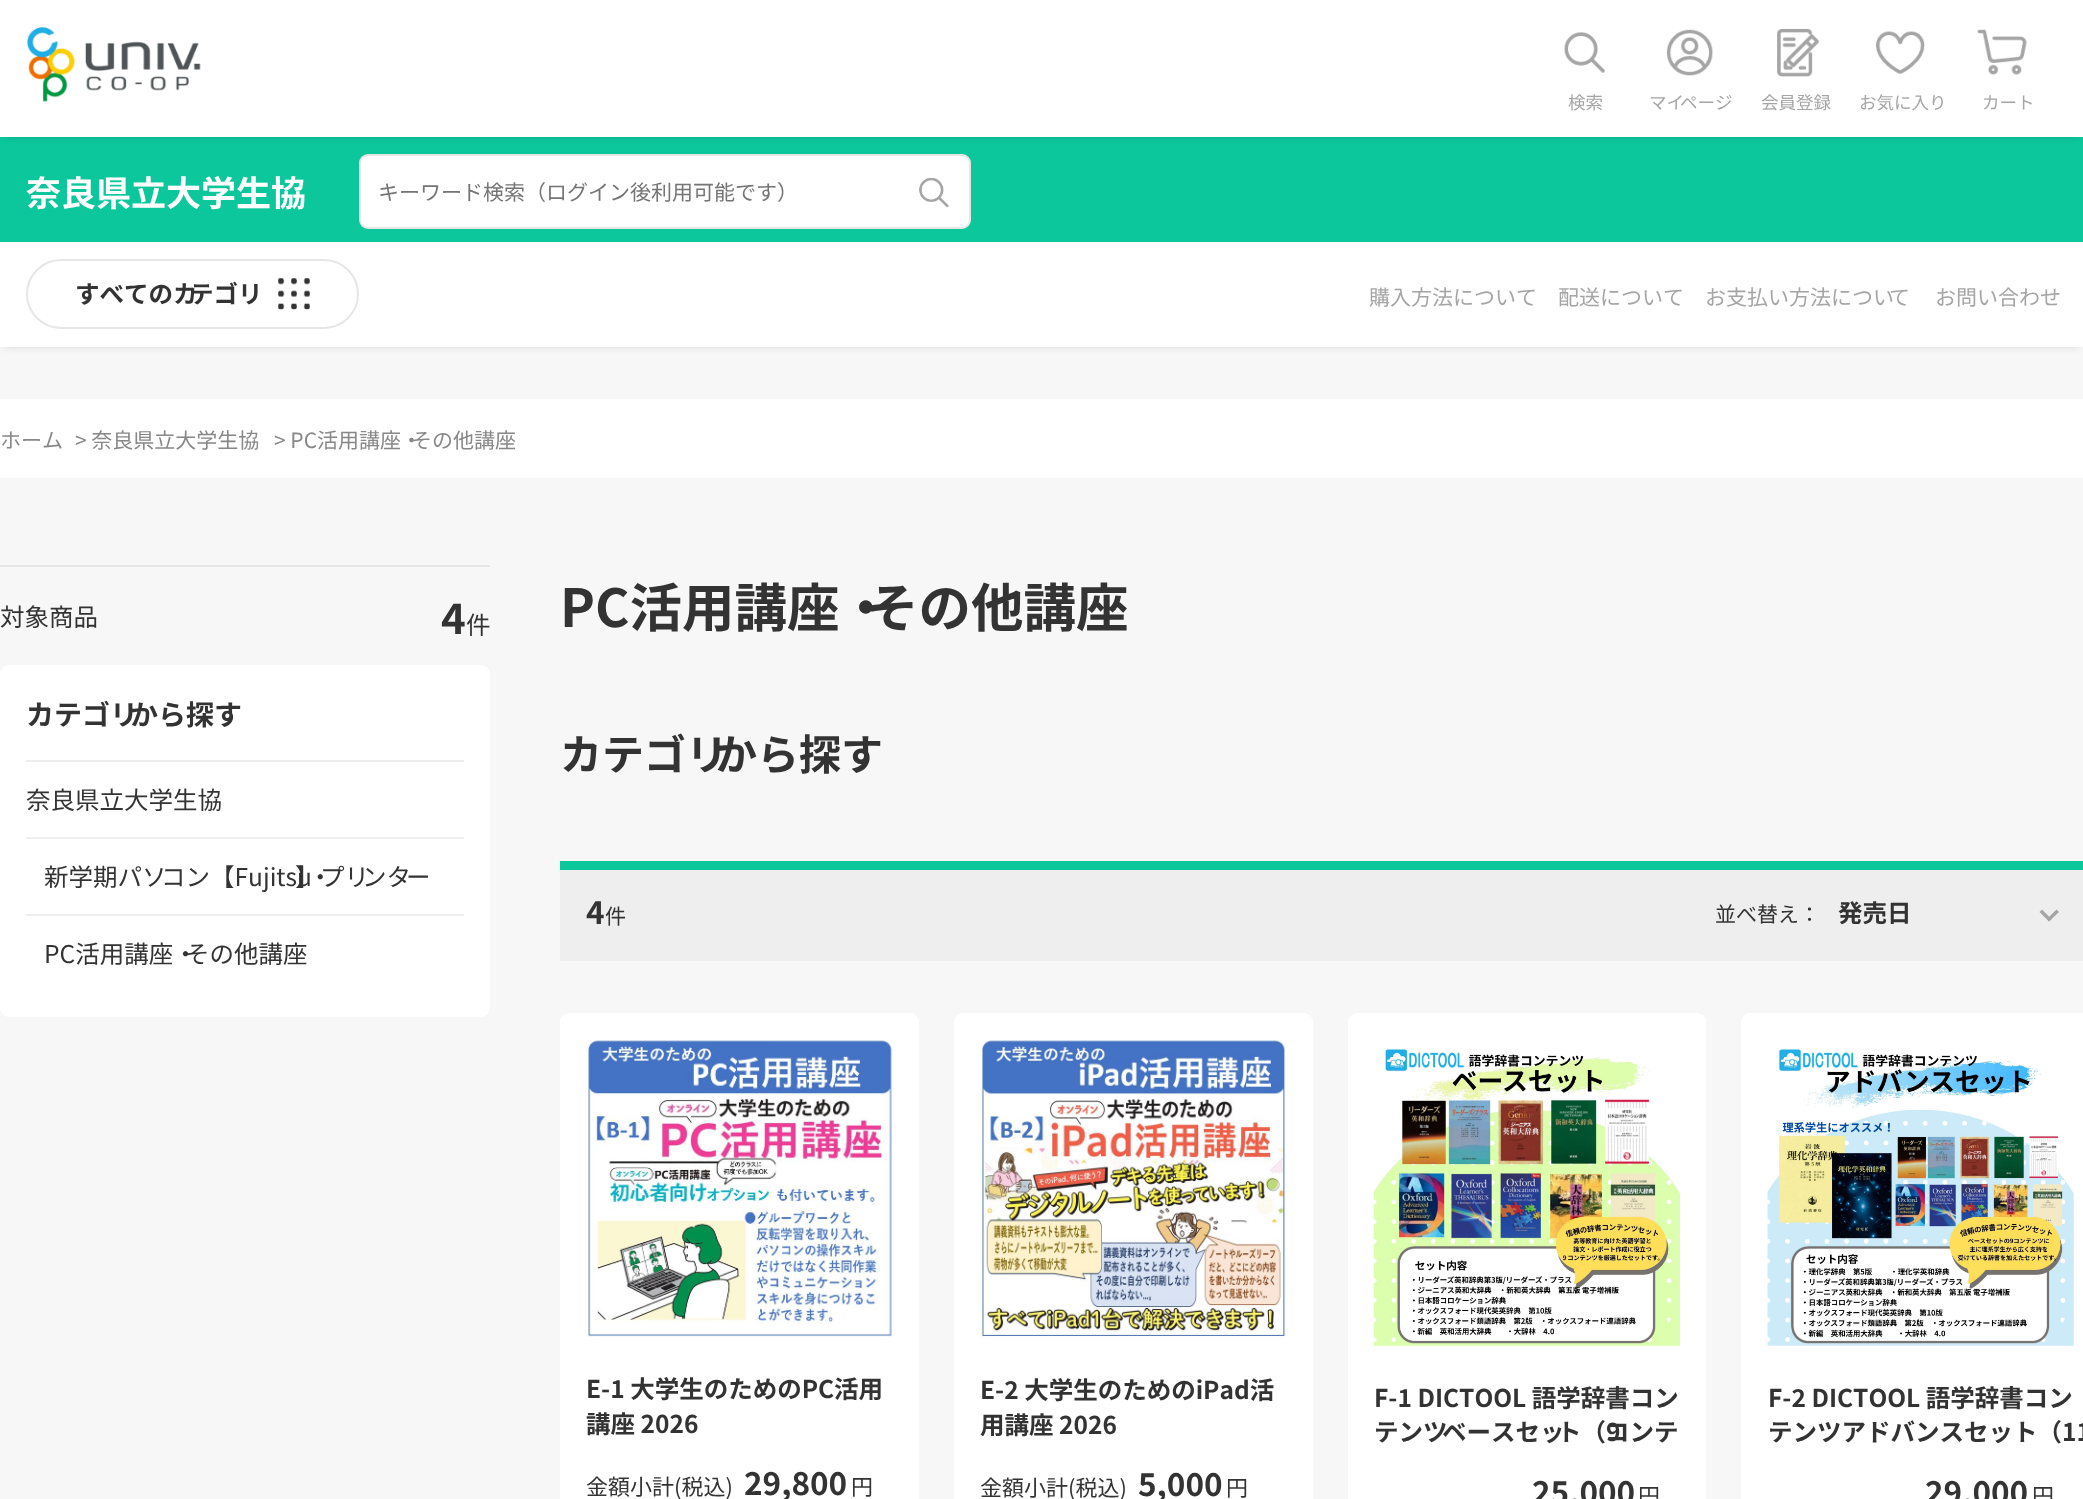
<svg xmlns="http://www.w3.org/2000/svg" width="2083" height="1499">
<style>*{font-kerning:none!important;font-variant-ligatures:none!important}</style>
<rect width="100%" height="100%" fill="#f7f7f7"/>
<rect x="5" y="145" width="2074" height="200" fill="#00000033" filter="blur(5px)"/>
<rect y="137" width="2083" height="105" fill="#0dc79c"/>
<rect x="5" y="9" width="2074" height="126" fill="#00000033" filter="blur(5px)"/>
<rect width="2083" height="137" fill="#fff"/>
<image x="27" y="27" width="174" height="75" href="media/1.png"/>
<image x="1564" y="32" width="41" height="41" href="media/2.png"/>
<text x="1568" y="109" style="font-family:Noto Sans JP;font-size:17.5px;fill:#a5a5a5">検索</text>
<image x="1666" y="29" width="47" height="47" href="media/3.png"/>
<text x="1649" y="109" style="font-family:Noto Sans JP;font-size:17.5px;fill:#a5a5a5">マイ</text>
<text x="1680" y="109" style="font-family:Noto Sans JP;font-size:17.5px;fill:#a5a5a5">ページ</text>
<image x="1777" y="28" width="43" height="49" href="media/4.png"/>
<text x="1761" y="109" style="font-family:Noto Sans JP;font-size:17.5px;fill:#a5a5a5">会員登録</text>
<image x="1876" y="31" width="49" height="44" href="media/5.png"/>
<text x="1859" y="109" style="font-family:Noto Sans JP;font-size:17.5px;fill:#a5a5a5">お気に入り</text>
<image x="1977" y="29" width="50" height="46" href="media/6.png"/>
<text x="1982" y="109" style="font-family:Noto Sans JP;font-size:17.5px;fill:#a5a5a5">カート</text>
<text x="26" y="206" style="font-family:Noto Sans JP;font-size:35px;font-weight:bold;fill:#fff">奈良県立大学生協</text>
<rect x="360" y="155" width="610" height="73" rx="8" fill="#fff" stroke="#e6e6e6" stroke-width="2"/>
<text x="378" y="200" style="font-family:Noto Sans JP;font-size:21px;fill:#757575">キーワード検索（ログイン後利用可能です）</text>
<image x="919" y="177" width="30" height="31" href="media/7.png"/>
<rect y="242" width="2083" height="105" fill="#fff"/>
<rect x="27" y="260" width="331" height="68" rx="34" fill="none" stroke="#e6e6e6" stroke-width="2"/>
<image x="278" y="278" width="32" height="32" href="media/8.png"/>
<text x="75" y="303" style="font-family:Noto Sans JP;font-size:24.5px;font-weight:bold;fill:#333">すべてのカ</text>
<text x="189" y="303" style="font-family:Noto Sans JP;font-size:24.5px;font-weight:bold;fill:#333">テゴリ</text>
<text x="1369" y="305" style="font-family:Noto Sans JP;font-size:21px;fill:#a5a5a5">購入方法について</text>
<text x="1558" y="305" style="font-family:Noto Sans JP;font-size:21px;fill:#a5a5a5">配送について</text>
<text x="1705" y="305" style="font-family:Noto Sans JP;font-size:21px;fill:#a5a5a5">お支払い方法につい</text>
<text x="1889" y="305" style="font-family:Noto Sans JP;font-size:21px;fill:#a5a5a5">て</text>
<text x="1935" y="305" style="font-family:Noto Sans JP;font-size:21px;fill:#a5a5a5">お問い合わせ</text>
<rect y="399" width="2083" height="79" fill="#fff"/>
<text x="0" y="448" style="font-family:Noto Sans JP;font-size:21px;fill:#888">ホーム</text>
<text x="75" y="448" style="font-family:Noto Sans JP;font-size:21px;fill:#888">&gt; 奈良県立大学生協</text>
<text x="274" y="448" style="font-family:Noto Sans JP;font-size:21px;fill:#888">&gt; PC活用講座・</text>
<text x="411" y="448" style="font-family:Noto Sans JP;font-size:21px;fill:#888">その他講座</text>
<rect y="565" width="490" height="2" fill="#e6e6e6"/>
<text x="0" y="626" style="font-family:Noto Sans JP;font-size:24.5px;fill:#333">対象商品</text>
<text x="441" y="634" style="font-family:Noto Sans JP;font-size:42px;font-weight:bold;fill:#333">4</text>
<text x="466" y="634" style="font-family:Noto Sans JP;font-size:24.5px;fill:#333">件</text>
<rect y="665" width="490" height="352" rx="9" fill="#fff"/>
<text x="26" y="725" style="font-family:Noto Sans JP;font-size:28px;font-weight:bold;fill:#333">カテゴリ</text>
<text x="130" y="725" style="font-family:Noto Sans JP;font-size:28px;font-weight:bold;fill:#333">から探す</text>
<rect x="26" y="760" width="438" height="2" fill="#eee"/>
<text x="26" y="809" style="font-family:Noto Sans JP;font-size:24.5px;fill:#333">奈良県立大学生協</text>
<rect x="26" y="837" width="438" height="2" fill="#eee"/>
<text x="44" y="886" style="font-family:Noto Sans JP;font-size:24.5px;fill:#333">新学期パソ</text>
<text x="161" y="886" style="font-family:Noto Sans JP;font-size:24.5px;fill:#333">コン【Fujitsu</text>
<text x="295" y="886" style="font-family:Noto Sans JP;font-size:24.5px;fill:#333">】</text>
<text x="308" y="886" style="font-family:Noto Sans JP;font-size:24.5px;fill:#333">・</text>
<text x="320" y="886" style="font-family:Noto Sans JP;font-size:24.5px;fill:#333">プリ</text>
<text x="362" y="886" style="font-family:Noto Sans JP;font-size:24.5px;fill:#333">ンタ</text>
<text x="406" y="886" style="font-family:Noto Sans JP;font-size:24.5px;fill:#333">ー</text>
<rect x="26" y="914" width="438" height="2" fill="#eee"/>
<text x="44" y="963" style="font-family:Noto Sans JP;font-size:24.5px;fill:#333">PC活用講座・</text>
<text x="185" y="963" style="font-family:Noto Sans JP;font-size:24.5px;fill:#333">その他講座</text>
<text x="560" y="627" style="font-family:Noto Sans JP;font-size:52.5px;font-weight:bold;fill:#333">PC活用講座・</text>
<text x="866" y="627" style="font-family:Noto Sans JP;font-size:52.5px;font-weight:bold;fill:#333">その他講座</text>
<text x="560" y="770" style="font-family:Noto Sans JP;font-size:42px;font-weight:bold;fill:#333">カテゴリ</text>
<text x="715" y="770" style="font-family:Noto Sans JP;font-size:42px;font-weight:bold;fill:#333">から探す</text>
<rect x="560" y="870" width="1523" height="91" fill="#eee"/>
<rect x="560" y="861" width="1523" height="9" fill="#0dc79c"/>
<text x="586" y="924" style="font-family:Noto Sans JP;font-size:31.5px;font-weight:bold;fill:#333">4</text>
<text x="605" y="924" style="font-family:Noto Sans JP;font-size:21px;fill:#333">件</text>
<text x="1715" y="922" style="font-family:Noto Sans JP;font-size:21px;fill:#333">並べ替え：</text>
<text x="1838" y="922" style="font-family:Noto Sans JP;font-size:24.5px;font-weight:bold;fill:#333">発売日</text>
<path d="M2059 912l-10 9.5l-2-2.5l9.5-9.5z" fill="#a5a5a5"/>
<path d="M2051.5 919l-2.5 2.5l-9.5-9.5l2.5-2.5z" fill="#a5a5a5"/>
<rect x="560" y="1013" width="359" height="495" rx="9" fill="#fff"/>
<image x="586" y="1039" width="307" height="298" href="media/9.png"/>
<text x="586" y="1398" style="font-family:Noto Sans JP;font-size:24.5px;font-weight:bold;fill:#333">E-1 大学生のためのPC活用</text>
<text x="586" y="1433" style="font-family:Noto Sans JP;font-size:24.5px;font-weight:bold;fill:#333">講座 2026</text>
<text x="586" y="1495" style="font-family:Noto Sans JP;font-size:22px;fill:#333">金額小計(税込)</text>
<text x="744" y="1495" style="font-family:Noto Sans JP;font-size:31.5px;font-weight:bold;fill:#333">29,800</text>
<text x="851" y="1495" style="font-family:Noto Sans JP;font-size:22px;fill:#333">円</text>
<rect x="954" y="1013" width="359" height="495" rx="9" fill="#fff"/>
<image x="980" y="1039" width="307" height="300" href="media/10.png"/>
<text x="980" y="1399" style="font-family:Noto Sans JP;font-size:24.5px;font-weight:bold;fill:#333">E-2 大学生のためのiPad活</text>
<text x="980" y="1434" style="font-family:Noto Sans JP;font-size:24.5px;font-weight:bold;fill:#333">用講座 2026</text>
<text x="980" y="1496" style="font-family:Noto Sans JP;font-size:22px;fill:#333">金額小計(税込)</text>
<text x="1138" y="1496" style="font-family:Noto Sans JP;font-size:31.5px;font-weight:bold;fill:#333">5,000</text>
<text x="1226" y="1496" style="font-family:Noto Sans JP;font-size:22px;fill:#333">円</text>
<rect x="1348" y="1013" width="358" height="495" rx="9" fill="#fff"/>
<image x="1373" y="1048" width="307" height="298" href="media/11.png"/>
<text x="1374" y="1407" style="font-family:Noto Sans JP;font-size:24.5px;font-weight:bold;fill:#333">F-1 DICTOOL 語学辞書コン</text>
<text x="1374" y="1441" style="font-family:Noto Sans JP;font-size:24.5px;font-weight:bold;fill:#333">テンツ</text>
<text x="1442" y="1441" style="font-family:Noto Sans JP;font-size:24.5px;font-weight:bold;fill:#333">ベースセッ</text>
<text x="1557" y="1441" style="font-family:Noto Sans JP;font-size:24.5px;font-weight:bold;fill:#333">ト（9</text>
<text x="1605" y="1441" style="font-family:Noto Sans JP;font-size:24.5px;font-weight:bold;fill:#333">コンテ</text>
<text x="1532" y="1504" style="font-family:Noto Sans JP;font-size:31.5px;font-weight:bold;fill:#333">25,000</text>
<text x="1638" y="1504" style="font-family:Noto Sans JP;font-size:22px;fill:#333">円</text>
<path d="M1750 1013h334v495h-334c-5 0-9-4-9-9v-477c0-5 4-9 9-9z" fill="#fff"/>
<image x="1767" y="1048" width="307" height="298" href="media/12.png"/>
<text x="1768" y="1407" style="font-family:Noto Sans JP;font-size:24.5px;font-weight:bold;fill:#333">F-2 DICTOOL 語学辞書コン</text>
<text x="1768" y="1441" style="font-family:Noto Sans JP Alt;font-size:24.5px;font-weight:bold;fill:#333">テンツアドバンスセット（11</text>
<text x="1925" y="1504" style="font-family:Noto Sans JP;font-size:31.5px;font-weight:bold;fill:#333">29,000</text>
<text x="2032" y="1504" style="font-family:Noto Sans JP;font-size:22px;fill:#333">円</text>
</svg>
